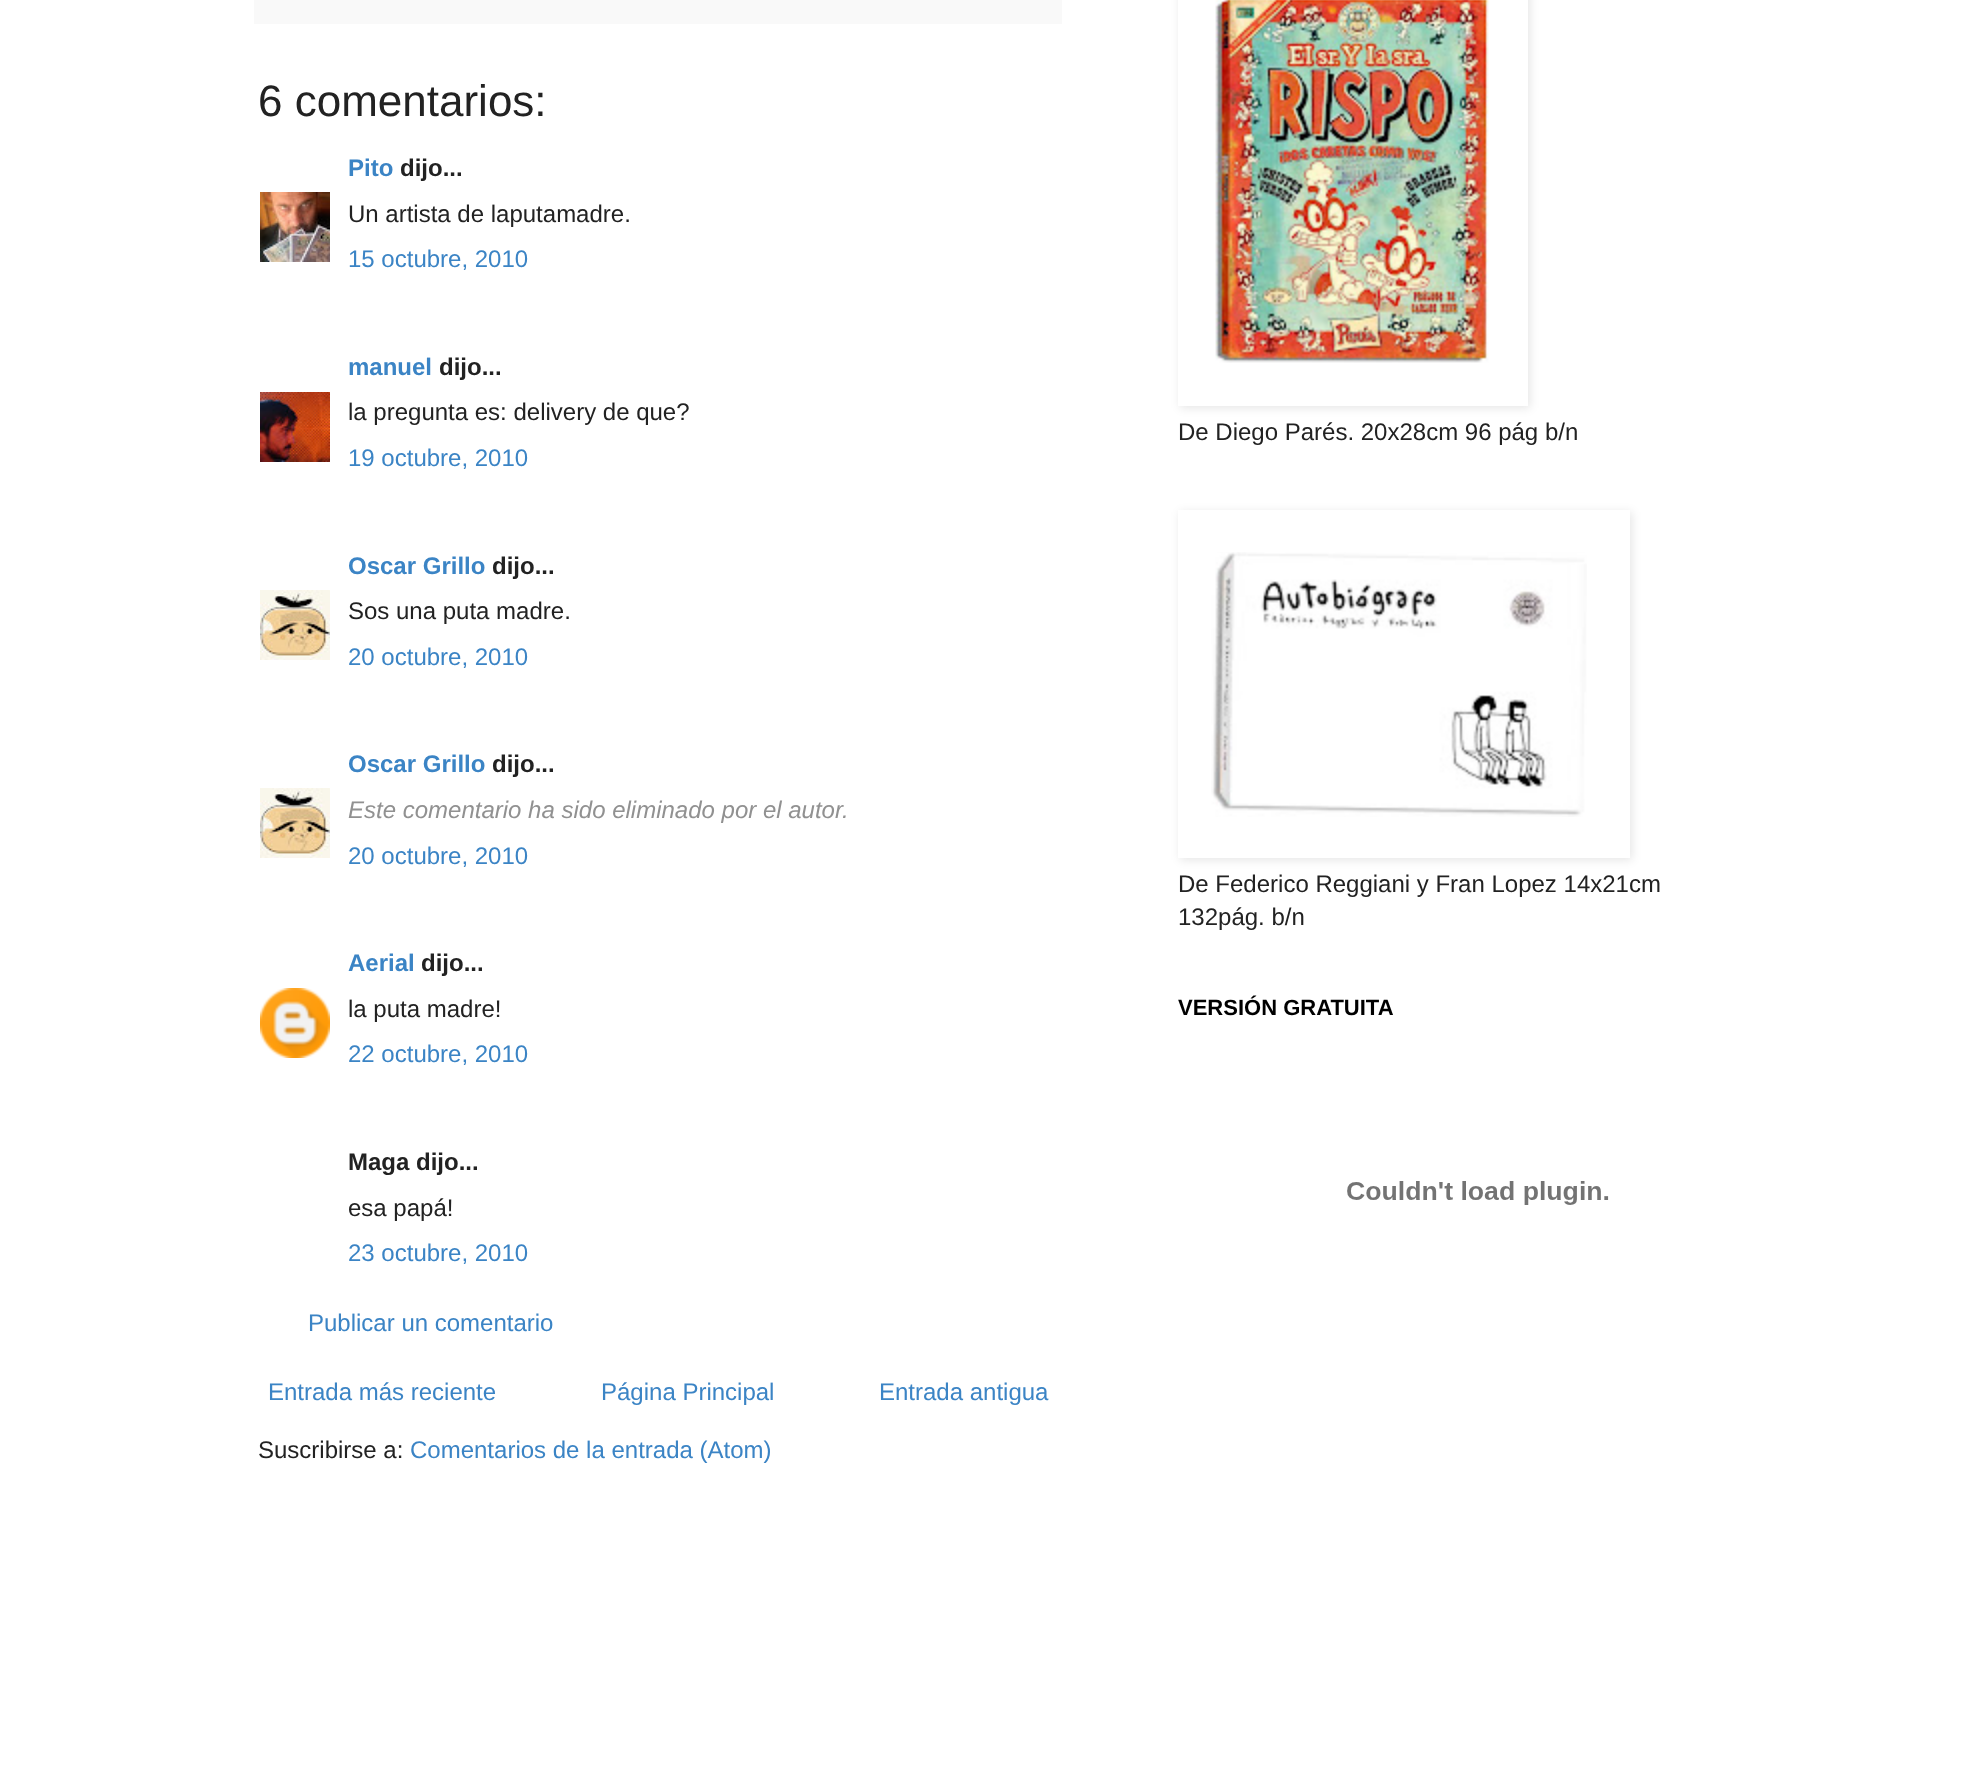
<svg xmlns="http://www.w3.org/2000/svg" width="1976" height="1780">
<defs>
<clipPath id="clip1"><path d="M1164 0h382v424h-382zm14-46h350v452h-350z" clip-rule="evenodd"/></clipPath>
<clipPath id="clip2"><path d="M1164 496h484v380h-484zm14 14h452v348h-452z" clip-rule="evenodd"/></clipPath>
</defs>
<rect width="100%" height="100%" fill="#fff"/>
<rect x="254" width="808" height="24" fill="#f9f9f9"/>
<text x="258" y="116" style="font-family:Liberation Sans;font-size:44px;fill:#222">6 comentarios:</text>
<text x="348" y="176" style="font-family:Liberation Sans;font-size:24px;font-weight:bold;fill:#3b84c5">Pito</text>
<text x="400" y="176" style="font-family:Liberation Sans;font-size:24px;font-weight:bold;fill:#222">dijo...</text>
<image x="260" y="192" width="70" height="70" href="media/1.png"/>
<text x="348" y="222" style="font-family:Liberation Sans;font-size:24px;fill:#222">Un artista de laputamadre.</text>
<text x="348" y="267" style="font-family:Liberation Sans;font-size:24px;fill:#3b84c5">15 octubre, 2010</text>
<text x="348" y="375" style="font-family:Liberation Sans;font-size:24px;font-weight:bold;fill:#3b84c5">manuel</text>
<text x="439" y="375" style="font-family:Liberation Sans;font-size:24px;font-weight:bold;fill:#222">dijo...</text>
<image x="260" y="392" width="70" height="70" href="media/2.png"/>
<text x="348" y="420" style="font-family:Liberation Sans;font-size:24px;fill:#222">la pregunta es: delivery de que?</text>
<text x="348" y="466" style="font-family:Liberation Sans;font-size:24px;fill:#3b84c5">19 octubre, 2010</text>
<text x="348" y="574" style="font-family:Liberation Sans;font-size:24px;font-weight:bold;fill:#3b84c5">Oscar Grillo</text>
<text x="492" y="574" style="font-family:Liberation Sans;font-size:24px;font-weight:bold;fill:#222">dijo...</text>
<image x="260" y="590" width="70" height="70" href="media/3.png"/>
<text x="348" y="619" style="font-family:Liberation Sans;font-size:24px;fill:#222">Sos una puta madre.</text>
<text x="348" y="665" style="font-family:Liberation Sans;font-size:24px;fill:#3b84c5">20 octubre, 2010</text>
<text x="348" y="772" style="font-family:Liberation Sans;font-size:24px;font-weight:bold;fill:#3b84c5">Oscar Grillo</text>
<text x="492" y="772" style="font-family:Liberation Sans;font-size:24px;font-weight:bold;fill:#222">dijo...</text>
<image x="260" y="788" width="70" height="70" href="media/3.png"/>
<text x="348" y="818" style="font-family:Liberation Sans;font-size:24px;font-style:italic;fill:#919191">Este comentario ha sido eliminado por el autor.</text>
<text x="348" y="864" style="font-family:Liberation Sans;font-size:24px;fill:#3b84c5">20 octubre, 2010</text>
<text x="348" y="971" style="font-family:Liberation Sans;font-size:24px;font-weight:bold;fill:#3b84c5">Aerial</text>
<text x="421" y="971" style="font-family:Liberation Sans;font-size:24px;font-weight:bold;fill:#222">dijo...</text>
<image x="260" y="988" width="70" height="70" href="media/4.png"/>
<text x="348" y="1017" style="font-family:Liberation Sans;font-size:24px;fill:#222">la puta madre!</text>
<text x="348" y="1062" style="font-family:Liberation Sans;font-size:24px;fill:#3b84c5">22 octubre, 2010</text>
<text x="348" y="1170" style="font-family:Liberation Sans;font-size:24px;font-weight:bold;fill:#222">Maga dijo...</text>
<text x="348" y="1216" style="font-family:Liberation Sans;font-size:24px;fill:#222">esa papá!</text>
<text x="348" y="1261" style="font-family:Liberation Sans;font-size:24px;fill:#3b84c5">23 octubre, 2010</text>
<text x="308" y="1331" style="font-family:Liberation Sans;font-size:24px;fill:#3b84c5">Publicar un comentario</text>
<text x="268" y="1400" style="font-family:Liberation Sans;font-size:24px;fill:#3b84c5">Entrada más reciente</text>
<text x="601" y="1400" style="font-family:Liberation Sans;font-size:24px;fill:#3b84c5">Página Principal</text>
<text x="879" y="1400" style="font-family:Liberation Sans;font-size:24px;fill:#3b84c5">Entrada antigua</text>
<text x="258" y="1458" style="font-family:Liberation Sans;font-size:24px;fill:#222">Suscribirse a:</text>
<text x="410" y="1458" style="font-family:Liberation Sans;font-size:24px;fill:#3b84c5">Comentarios de la entrada (Atom)</text>
<g clip-path="url(#clip1)">
<rect x="1180" y="-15" width="350" height="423" fill="#0000001a" filter="blur(5px)"/>
</g>
<image x="1215" y="0" width="274" height="363" href="media/5.png"/>
<text x="1178" y="440" style="font-family:Liberation Sans;font-size:24px;fill:#222">De Diego Parés. 20x28cm 96 pág b/n</text>
<g clip-path="url(#clip2)">
<rect x="1180" y="512" width="452" height="348" fill="#0000001a" filter="blur(5px)"/>
</g>
<image x="1211" y="552" width="376" height="265" href="media/6.png"/>
<text x="1178" y="892" style="font-family:Liberation Sans;font-size:24px;fill:#222">De Federico Reggiani y Fran Lopez 14x21cm</text>
<text x="1178" y="925" style="font-family:Liberation Sans;font-size:24px;fill:#222">132pág. b/n</text>
<text x="1178" y="1015" style="font-family:Liberation Sans;font-size:22px;font-weight:bold;fill:#000">VERSIÓN GRATUITA</text>
<image x="1347" y="1181" width="262" height="24" href="media/7.png"/>
</svg>
